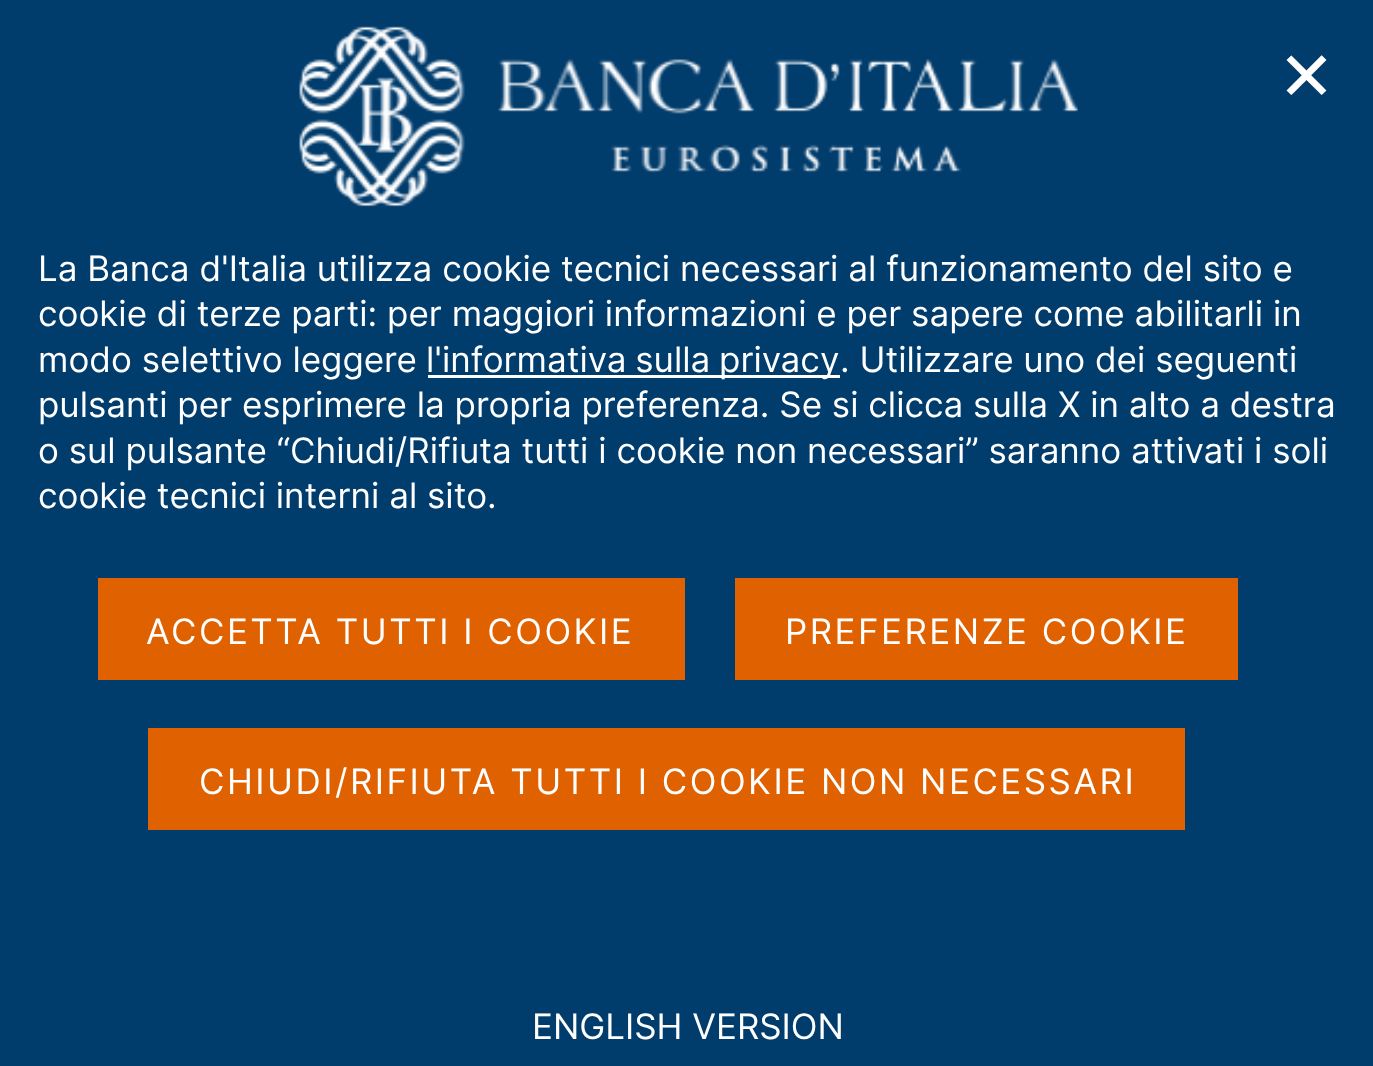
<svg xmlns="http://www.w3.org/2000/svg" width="1373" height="1066">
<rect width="100%" height="100%" fill="#003c6c"/>
<image x="299" y="26" width="779" height="181" href="media/1.png"/>
<text x="1278" y="100" style="font-family:DejaVu Sans;font-size:68px;letter-spacing:2.5px;fill:#fff">✕</text>
<text x="38" y="281" style="font-family:Inter;font-size:35px;fill:#fff">La Banca d'Italia utilizza cookie tecnici necessari al funzionamento del sito e</text>
<text x="38" y="326" style="font-family:Inter;font-size:35px;fill:#fff">cookie di terze parti: per maggiori informazioni e per sapere come abilitarli in</text>
<text x="38" y="372" style="font-family:Inter;font-size:35px;fill:#fff">modo selettivo leggere</text>
<rect x="428" y="375" width="412" height="3" fill="#fff"/>
<text x="426" y="372" word-spacing="-1" style="font-family:Inter;font-size:35px;fill:#fff">l'informativa sulla privacy</text>
<text x="840" y="372" style="font-family:Inter;font-size:35px;fill:#fff">. Utilizzare uno dei seguenti</text>
<text x="38" y="417" style="font-family:Inter;font-size:35px;fill:#fff">pulsanti per esprimere la propria preferenza. Se si clicca sulla X in alto a destra</text>
<text x="38" y="463" style="font-family:Inter;font-size:35px;fill:#fff">o sul pulsante “Chiudi/Rifiuta tutti i cookie non necessari” saranno attivati i soli</text>
<text x="38" y="508" style="font-family:Inter;font-size:35px;fill:#fff">cookie tecnici interni al sito.</text>
<rect x="98" y="578" width="587" height="102" fill="#e06100"/>
<text x="146" y="644" style="font-family:Inter;font-size:35px;letter-spacing:2.5px;fill:#fff">ACCETTA TUTTI I COOKIE</text>
<rect x="735" y="578" width="503" height="102" fill="#e06100"/>
<text x="785" y="644" style="font-family:Inter;font-size:35px;letter-spacing:2.5px;fill:#fff">PREFERENZE COOKIE</text>
<rect x="148" y="728" width="1037" height="102" fill="#e06100"/>
<text x="199" y="794" style="font-family:Inter;font-size:35px;letter-spacing:2.5px;fill:#fff">CHIUDI/RIFIUTA TUTTI I COOKIE NON NECESSARI</text>
<text x="532" y="1039" style="font-family:Inter;font-size:35px;fill:#fff">ENGLISH VERSION</text>
</svg>
